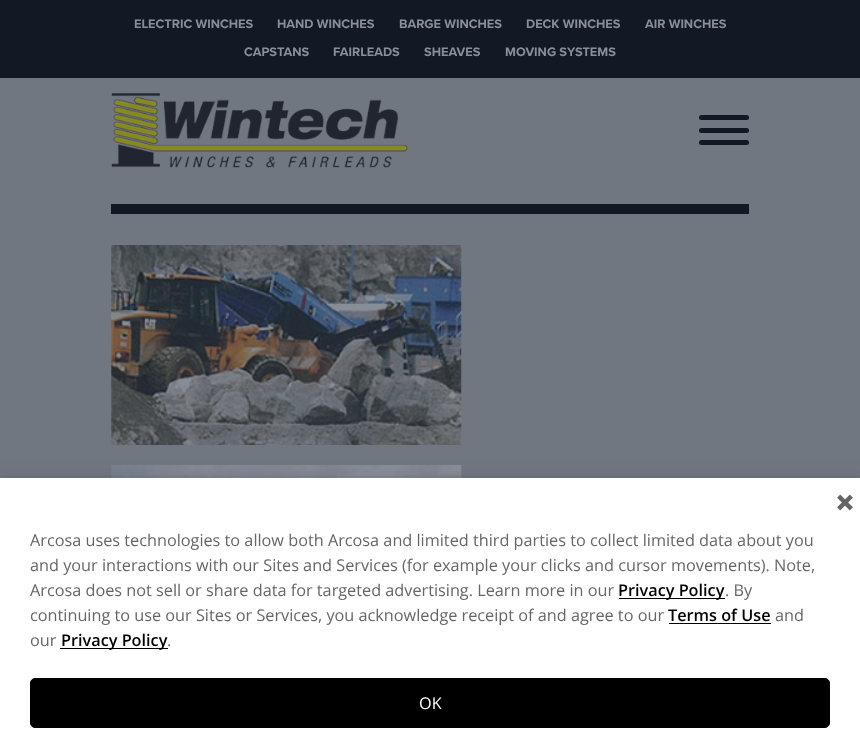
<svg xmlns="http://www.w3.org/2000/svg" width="860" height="752">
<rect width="100%" height="100%" fill="#717781"/>
<rect width="860" height="78" fill="#131924"/>
<text x="134" y="28" style="font-family:Proxima Nova;font-size:12.75px;font-weight:bold;fill:#898f99">ELECTRIC WINCHES</text>
<text x="277" y="28" style="font-family:Proxima Nova;font-size:12.75px;font-weight:bold;fill:#898f99">HAND WINCHES</text>
<text x="399" y="28" style="font-family:Proxima Nova;font-size:12.75px;font-weight:bold;fill:#898f99">BARGE WINCHES</text>
<text x="526" y="28" style="font-family:Proxima Nova;font-size:12.75px;font-weight:bold;fill:#898f99">DECK WINCHES</text>
<text x="645" y="28" style="font-family:Proxima Nova;font-size:12.75px;font-weight:bold;fill:#898f99">AIR WINCHES</text>
<text x="244" y="56" style="font-family:Proxima Nova;font-size:12.75px;font-weight:bold;fill:#898f99">CAPSTANS</text>
<text x="333" y="56" style="font-family:Proxima Nova;font-size:12.75px;font-weight:bold;fill:#898f99">FAIRLEADS</text>
<text x="424" y="56" style="font-family:Proxima Nova;font-size:12.75px;font-weight:bold;fill:#898f99">SHEAVES</text>
<text x="505" y="56" style="font-family:Proxima Nova;font-size:12.75px;font-weight:bold;fill:#898f99">MOVING SYSTEMS</text>
<image x="111" y="93" width="297" height="75" href="media/1.png"/>
<rect x="699" y="128" width="50" height="5" rx="2.5" fill="#131924"/>
<rect x="699" y="115" width="50" height="5" rx="2.5" fill="#131924"/>
<rect x="699" y="140" width="50" height="5" rx="2.5" fill="#131924"/>
<rect x="111" y="204" width="638" height="10" fill="#131924"/>
<image x="111" y="245" width="351" height="200" href="media/2.png"/>
<image x="111" y="465" width="351" height="13" href="media/3.png"/>
<rect x="-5" y="485" width="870" height="260" fill="#242f424f" filter="blur(12.5px)"/>
<rect x="-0.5" y="476.5" width="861" height="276" fill="none" stroke="#242f4214"/>
<rect y="478" width="860" height="274" fill="#fff"/>
<text x="30" y="546" style="font-family:Open Sans;font-size:16.25px;fill:#666">Arcosa uses technologies to allow both Arcosa and limited third parties to collect limited data about you</text>
<text x="30" y="571" style="font-family:Open Sans;font-size:16.25px;fill:#666">and your interactions with our Sites and Services (for example your clicks and cursor movements). Note,</text>
<text x="30" y="596" style="font-family:Open Sans;font-size:16.25px;fill:#666">Arcosa does not sell or share data for targeted advertising. Learn more in our</text>
<rect x="619" y="598" width="106" height="1" fill="#000"/>
<text x="618" y="596" style="font-family:Open Sans;font-size:16.25px;font-weight:600;fill:#000">Privacy Policy</text>
<text x="725" y="596" style="font-family:Open Sans;font-size:16.25px;fill:#666">. By</text>
<text x="30" y="621" style="font-family:Open Sans;font-size:16.25px;fill:#666">continuing to use our Sites or Services, you acknowledge receipt of and agree to our</text>
<text x="668" y="621" style="font-family:Open Sans;font-size:16.25px;font-weight:600;fill:#000">Terms of Use</text>
<rect x="669" y="623" width="102" height="1" fill="#000"/>
<text x="775" y="621" style="font-family:Open Sans;font-size:16.25px;fill:#666">and</text>
<text x="30" y="646" style="font-family:Open Sans;font-size:16.25px;fill:#666">our</text>
<rect x="60" y="648" width="108" height="1" fill="#000"/>
<text x="61" y="646" style="font-family:Open Sans;font-size:16.25px;font-weight:600;fill:#000">Privacy Policy</text>
<text x="167" y="646" style="font-family:Open Sans;font-size:16.25px;fill:#666">.</text>
<image x="837" y="494" width="16" height="17" href="media/4.png"/>
<rect x="30.5" y="678.5" width="799" height="49" rx="4.5" fill="#000" stroke="#000"/>
<text x="419" y="709" style="font-family:Open Sans;font-size:16.25px;fill:#fff">OK</text>
</svg>
